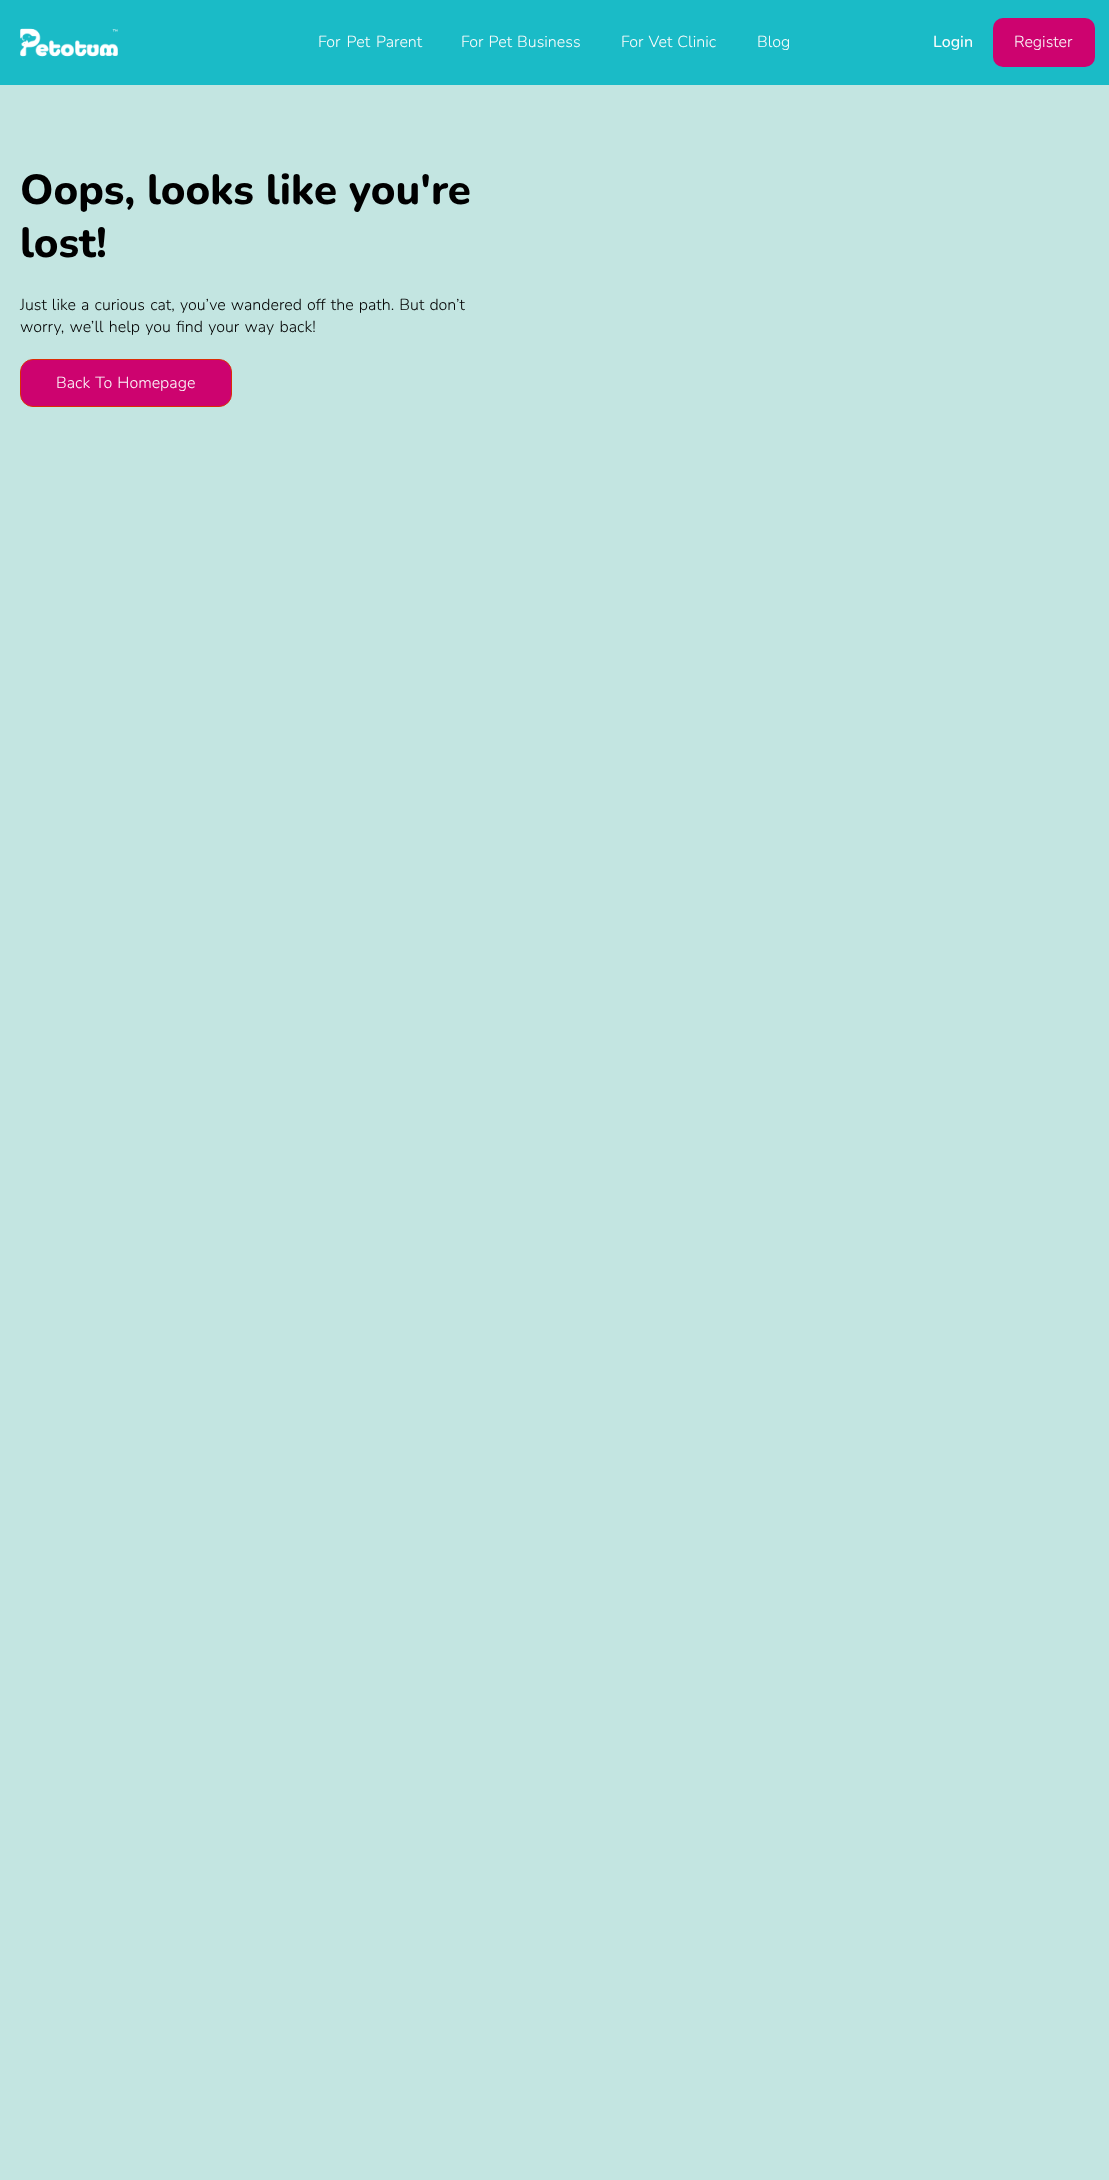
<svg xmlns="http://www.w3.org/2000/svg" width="1109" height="2180">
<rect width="100%" height="100%" fill="#c3e5e1"/>
<rect width="1109" height="85" fill="#1abbc7"/>
<image x="20" y="28" width="98" height="29" href="media/1.png"/>
<text x="318" y="47" word-spacing="2" style="font-family:Nunito;font-size:16px;font-weight:300;fill:#fcfcfc">For Pet Parent</text>
<text x="461" y="47" word-spacing="1" style="font-family:Nunito;font-size:16px;font-weight:300;fill:#fcfcfc">For Pet Business</text>
<text x="621" y="47" word-spacing="1" style="font-family:Nunito;font-size:16px;font-weight:300;fill:#fcfcfc">For Vet Clinic</text>
<text x="757" y="47" style="font-family:Nunito;font-size:16px;font-weight:300;fill:#fcfcfc">Blog</text>
<text x="933" y="47" style="font-family:Nunito;font-size:16px;font-weight:500;fill:#fcfcfc">Login</text>
<rect x="993" y="18" width="102" height="49" rx="10" fill="#cd036f"/>
<text x="1014" y="47" style="font-family:Nunito;font-size:16px;font-weight:300;fill:#fcfcfc">Register</text>
<text x="20" y="204" style="font-family:Nunito;font-size:42px;font-weight:800;fill:#000">Oops, looks like you're</text>
<text x="20" y="257" style="font-family:Nunito;font-size:42px;font-weight:800;fill:#000">lost!</text>
<text x="20" y="310" word-spacing="1.1" style="font-family:Nunito;font-size:16px;font-weight:300;fill:#000">Just like a curious cat, you’ve wandered off the path. But don’t</text>
<text x="20" y="332" word-spacing="1.25" style="font-family:Nunito;font-size:16px;font-weight:300;fill:#000">worry, we’ll help you find your way back!</text>
<rect x="20.5" y="359.5" width="211" height="47" rx="12.5" fill="#cd036f" stroke="#dc2c06"/>
<text x="56" y="388" word-spacing="1" style="font-family:Nunito;font-size:16px;font-weight:300;fill:#fcfcfc">Back To Homepage</text>
</svg>
